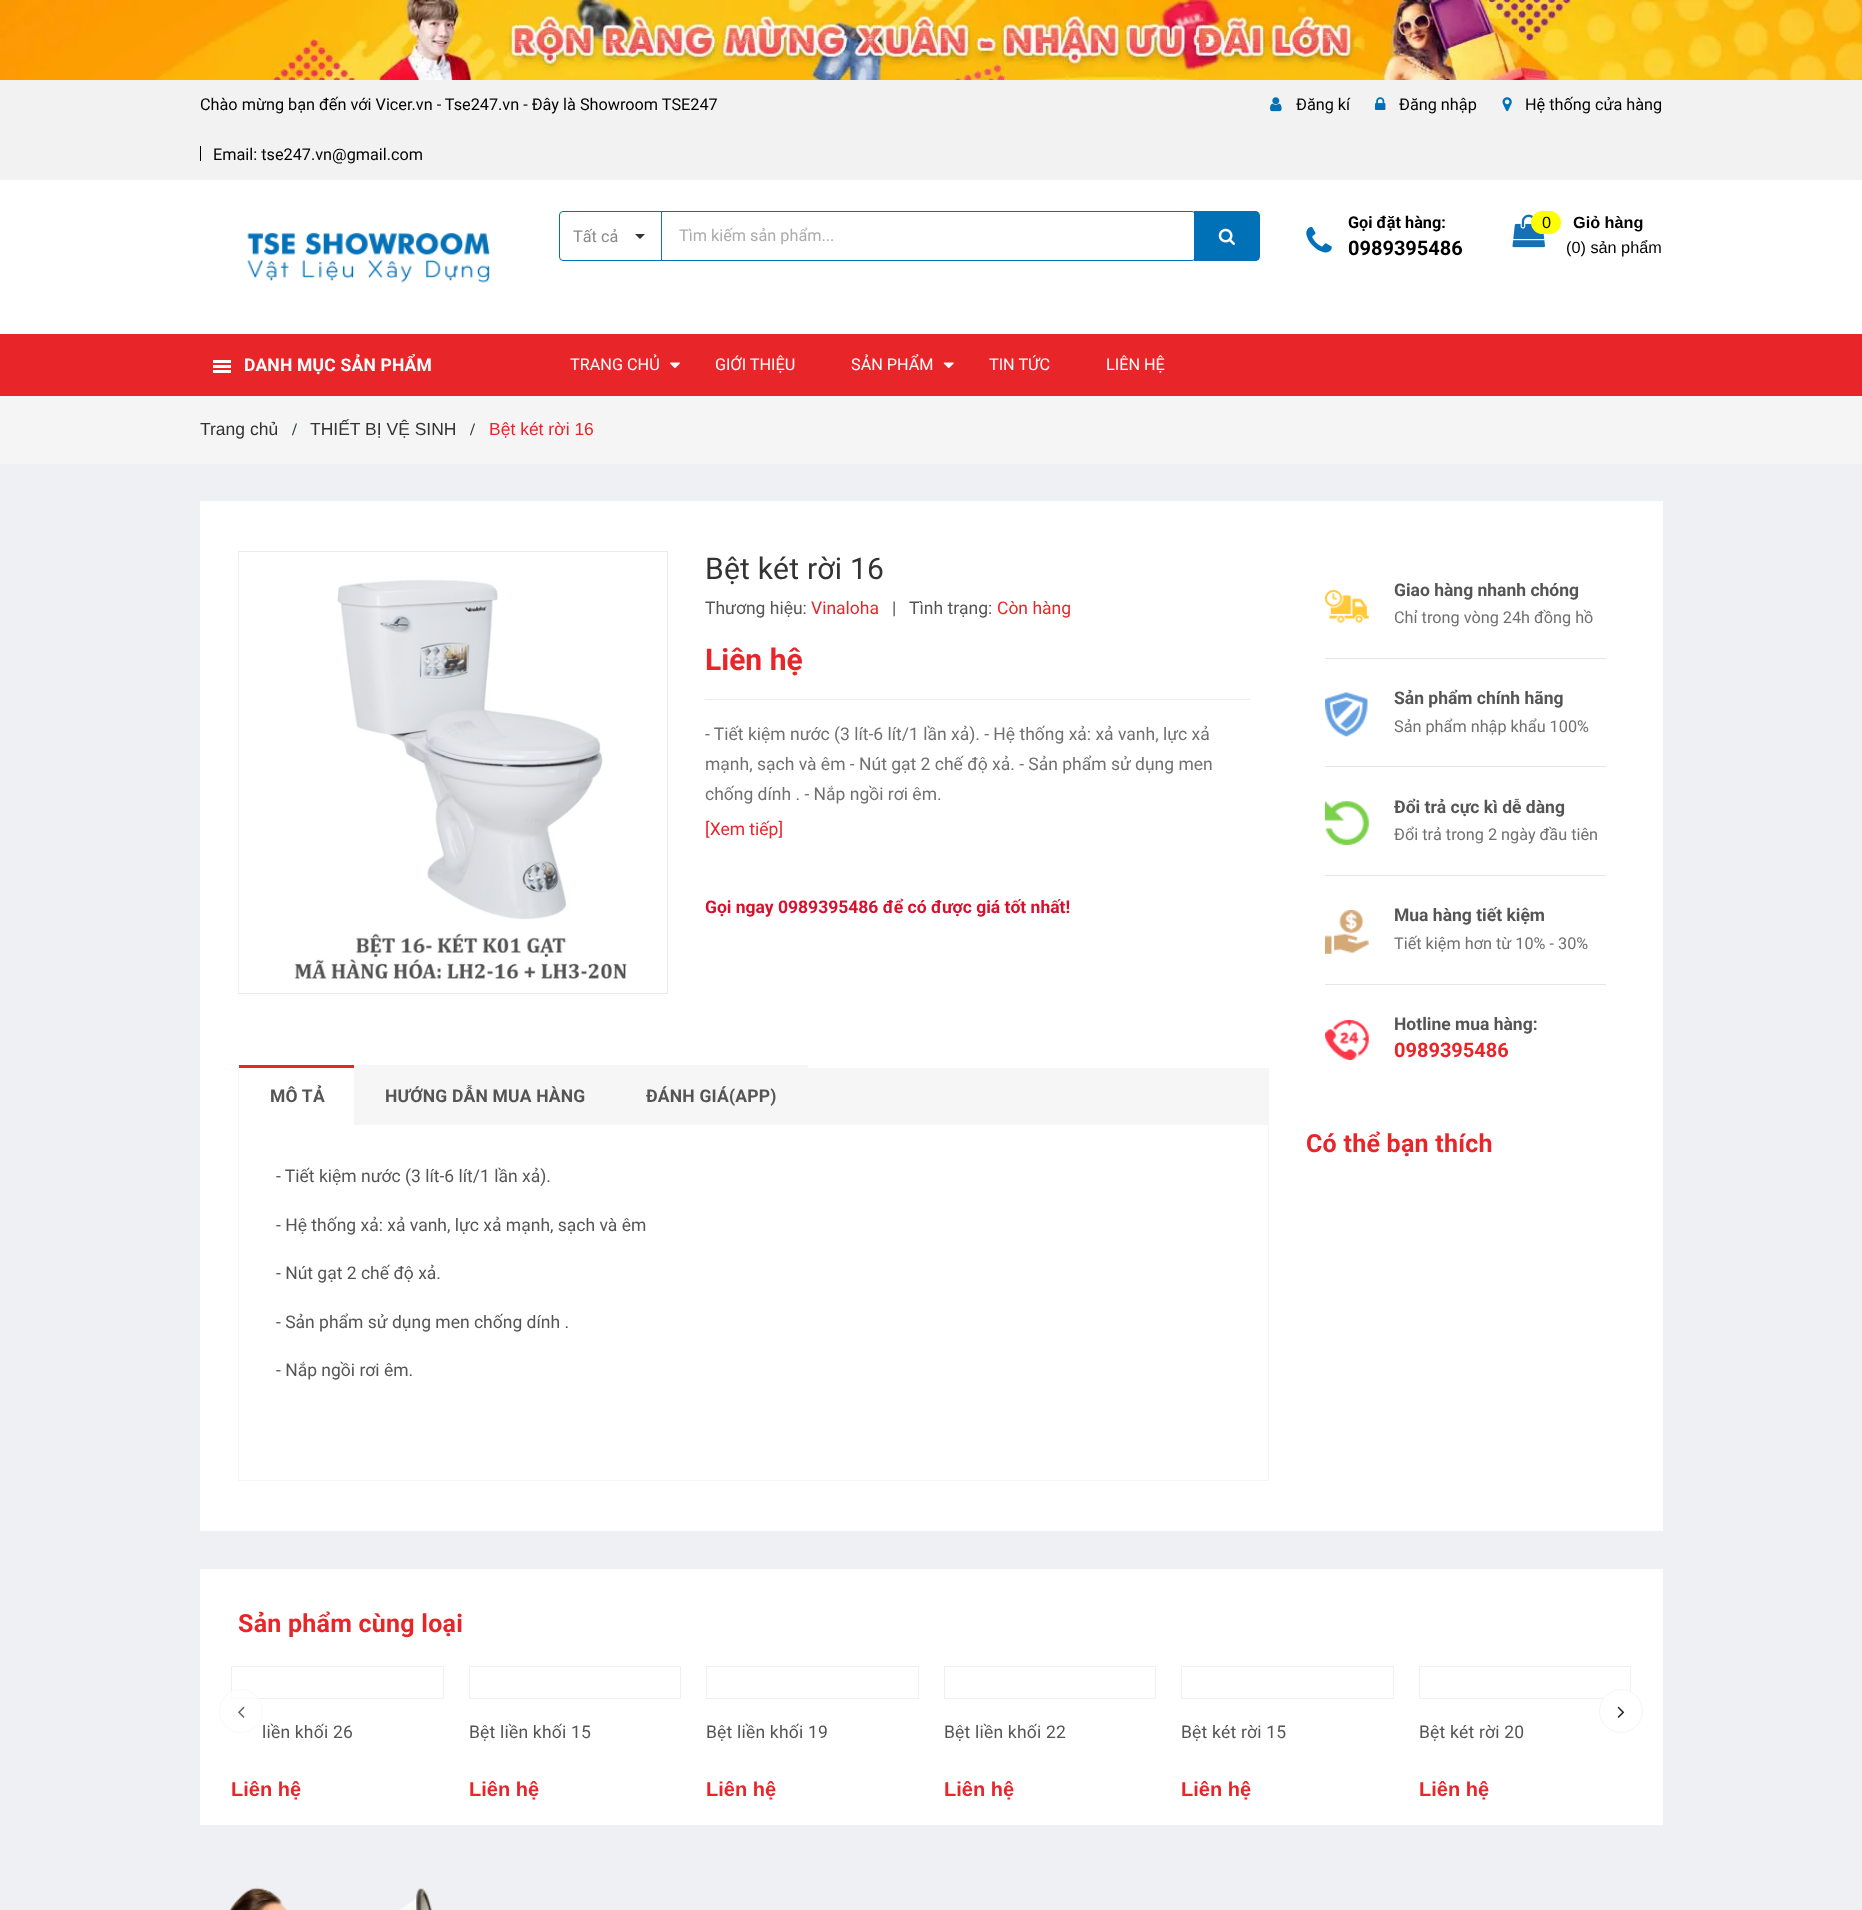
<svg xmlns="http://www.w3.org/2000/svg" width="1862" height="1910">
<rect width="100%" height="100%" fill="#eff0f3"/>
<image x="0" y="0" width="1862" height="80" href="media/1.png"/>
<rect y="80" width="1862" height="100" fill="#f2f2f2"/>
<text x="200" y="110" style="font-family:Roboto;font-size:16.25px;fill:#000">Chào mừng bạn đến với Vicer.vn - Tse247.vn - Đây là Showroom TSE247</text>
<rect x="200" y="146" width="1" height="15" fill="#000"/>
<text x="213" y="160" style="font-family:Roboto;font-size:16.25px;fill:#000">Email: tse247.vn@gmail.com</text>
<image x="1270" y="97" width="12" height="15" href="media/2.png"/>
<text x="1296" y="110" style="font-family:Roboto;font-size:16.25px;fill:#000">Đăng kí</text>
<image x="1375" y="97" width="11" height="13" href="media/3.png"/>
<text x="1399" y="110" style="font-family:Roboto;font-size:16.25px;fill:#000">Đăng nhập</text>
<image x="1502" y="97" width="10" height="15" href="media/4.png"/>
<text x="1525" y="110" style="font-family:Roboto;font-size:16.25px;fill:#000">Hệ thống cửa hàng</text>
<rect y="180" width="1862" height="154" fill="#fff"/>
<image x="247" y="232" width="243" height="51" href="media/5.png"/>
<rect x="559.5" y="211.5" width="636" height="49" rx="3.5" fill="none" stroke="#0071b7"/>
<rect x="661" y="211" width="1" height="50" fill="#1471b7"/>
<text x="573" y="242" style="font-family:Roboto;font-size:16.25px;fill:#898989">Tất cả</text>
<path d="M635 234h10l-5 5z" fill="#333"/>
<text x="679" y="241" style="font-family:Roboto;font-size:16.25px;fill:#acacac">Tìm kiếm sản phẩm...</text>
<path d="M1194 211h61c3 0 5 2 5 5v40c0 3-2 5-5 5h-61z" fill="#0071b7"/>
<image x="1218" y="228" width="17" height="17" href="media/6.png"/>
<text x="1348" y="228" style="font-family:Roboto;font-size:16.25px;font-weight:bold;fill:#000">Gọi đặt hàng:</text>
<image x="1306" y="227" width="26" height="26" href="media/7.png"/>
<text x="1348" y="255" style="font-family:Roboto;font-size:20px;font-weight:bold;fill:#000">0989395486</text>
<image x="1512" y="214" width="33" height="34" href="media/8.png"/>
<rect x="1531" y="211" width="30" height="23" rx="11.5" fill="#ff0"/>
<text x="1542" y="228" style="font-family:Liberation Sans;font-size:16.25px;fill:#000">0</text>
<text x="1573" y="228" style="font-family:Liberation Sans;font-size:16.25px;font-weight:bold;fill:#000">Giỏ hàng</text>
<text x="1566" y="253" style="font-family:Liberation Sans;font-size:16.25px;fill:#000">(0) sản phẩm</text>
<rect y="334" width="1862" height="62" fill="#e82629"/>
<rect x="213" y="365" width="18" height="3" fill="#fff"/>
<rect x="213" y="360" width="18" height="3" fill="#fff"/>
<rect x="213" y="370" width="18" height="3" fill="#fff"/>
<text x="244" y="371" style="font-family:Roboto;font-size:17.5px;font-weight:bold;letter-spacing:0.2px;fill:#fff">DANH MỤC SẢN PHẨM</text>
<text x="570" y="370" style="font-family:Roboto;font-size:16.25px;fill:#fff">TRANG CHỦ</text>
<image x="670" y="362" width="10" height="6" href="media/9.png"/>
<text x="715" y="370" style="font-family:Roboto;font-size:16.25px;fill:#fff">GIỚI THIỆU</text>
<text x="851" y="370" style="font-family:Roboto;font-size:16.25px;fill:#fff">SẢN PHẨM</text>
<image x="943" y="362" width="11" height="7" href="media/10.png"/>
<text x="989" y="370" style="font-family:Roboto;font-size:16.25px;fill:#fff">TIN TỨC</text>
<text x="1106" y="370" style="font-family:Roboto;font-size:16.25px;fill:#fff">LIÊN HỆ</text>
<rect y="396" width="1862" height="68" fill="#f5f5f5"/>
<text x="200" y="435" style="font-family:Liberation Sans;font-size:17.5px;fill:#333">Trang chủ</text>
<text x="292" y="435" style="font-family:Liberation Serif;font-size:17.5px;font-weight:bold;fill:#323c3f">/</text>
<text x="310" y="435" style="font-family:Liberation Sans;font-size:17.5px;fill:#333">THIẾT BỊ VỆ SINH</text>
<text x="470" y="435" style="font-family:Liberation Serif;font-size:17.5px;font-weight:bold;fill:#323c3f">/</text>
<text x="489" y="435" style="font-family:Liberation Sans;font-size:17.5px;fill:#e82629">Bệt két rời 16</text>
<rect x="200" y="501" width="1463" height="1030" fill="#fff"/>
<rect x="238.5" y="551.5" width="429" height="442" fill="none" stroke="#ebebeb"/>
<image x="238" y="553" width="389" height="439" href="media/11.png"/>
<text x="705" y="579" style="font-family:Roboto;font-size:30px;letter-spacing:0.25px;fill:#333">Bệt két rời 16</text>
<text x="705" y="614" style="font-family:Roboto;font-size:17.5px;fill:#555">Thương hiệu:</text>
<text x="811" y="614" style="font-family:Roboto;font-size:17.5px;fill:#e82629">Vinaloha</text>
<text x="892" y="614" style="font-family:Roboto;font-size:17.5px;fill:#555">|</text>
<text x="909" y="614" style="font-family:Roboto;font-size:17.5px;fill:#555">Tình trạng:</text>
<text x="997" y="614" style="font-family:Roboto;font-size:17.5px;fill:#e82629">Còn hàng</text>
<text x="705" y="670" style="font-family:Roboto;font-size:30px;font-weight:bold;fill:#e82629">Liên hệ</text>
<rect x="705" y="699" width="545" height="1" fill="#ebebeb"/>
<text x="705" y="740" style="font-family:Roboto;font-size:17.5px;fill:#707070">- Tiết kiệm nước (3 lít-6 lít/1 lần xả). - Hệ thống xả: xả vanh, lực xả</text>
<text x="705" y="770" style="font-family:Roboto;font-size:17.5px;fill:#707070">mạnh, sạch và êm - Nút gạt 2 chế độ xả. - Sản phẩm sử dụng men</text>
<text x="705" y="800" style="font-family:Roboto;font-size:17.5px;fill:#707070">chống dính . - Nắp ngồi rơi êm.</text>
<text x="705" y="835" style="font-family:Roboto;font-size:17.5px;fill:#e82629">[Xem tiếp]</text>
<text x="705" y="913" style="font-family:Roboto;font-size:17.5px;font-weight:bold;fill:#d7102c">Gọi ngay 0989395486 để có được giá tốt nhất!</text>
<rect x="238" y="1068" width="1031" height="57" fill="#f6f6f6"/>
<rect x="239" y="1068" width="115" height="57" fill="#fff"/>
<rect x="239" y="1065" width="117" height="3" fill="#e82629"/>
<text x="270" y="1102" style="font-family:Roboto;font-size:17.5px;font-weight:bold;letter-spacing:0.2px;fill:#555">MÔ TẢ</text>
<rect x="354" y="1065" width="454" height="3" fill="#f6f6f6"/>
<text x="385" y="1102" style="font-family:Roboto;font-size:17.5px;font-weight:bold;letter-spacing:0.2px;fill:#555">HƯỚNG DẪN MUA HÀNG</text>
<text x="646" y="1102" style="font-family:Roboto;font-size:17.5px;font-weight:bold;letter-spacing:0.2px;fill:#555">ĐÁNH GIÁ(APP)</text>
<rect x="1268" y="1125" width="1" height="356" fill="#f6f6f6"/>
<rect x="238" y="1480" width="1031" height="1" fill="#f6f6f6"/>
<rect x="238" y="1125" width="1" height="356" fill="#f6f6f6"/>
<text x="276" y="1182" style="font-family:Roboto;font-size:17.5px;fill:#555">- Tiết kiệm nước (3 lít-6 lít/1 lần xả).</text>
<text x="276" y="1231" style="font-family:Roboto;font-size:17.5px;fill:#555">- Hệ thống xả: xả vanh, lực xả mạnh, sạch và êm</text>
<text x="276" y="1279" style="font-family:Roboto;font-size:17.5px;fill:#555">- Nút gạt 2 chế độ xả.</text>
<text x="276" y="1328" style="font-family:Roboto;font-size:17.5px;fill:#555">- Sản phẩm sử dụng men chống dính .</text>
<text x="276" y="1376" style="font-family:Roboto;font-size:17.5px;fill:#555">- Nắp ngồi rơi êm.</text>
<rect x="1325" y="658" width="281" height="1" fill="#e5e5e5"/>
<image x="1325" y="590" width="44" height="33" href="media/12.png"/>
<text x="1394" y="596" style="font-family:Roboto;font-size:17.5px;font-weight:bold;fill:#555">Giao hàng nhanh chóng</text>
<text x="1394" y="623" style="font-family:Roboto;font-size:16.25px;fill:#707070">Chỉ trong vòng 24h đồng hồ</text>
<rect x="1325" y="766" width="281" height="1" fill="#e5e5e5"/>
<image x="1325" y="692" width="43" height="45" href="media/13.png"/>
<text x="1394" y="704" style="font-family:Roboto;font-size:17.5px;font-weight:bold;fill:#555">Sản phẩm chính hãng</text>
<text x="1394" y="732" style="font-family:Roboto;font-size:16.25px;fill:#707070">Sản phẩm nhập khẩu 100%</text>
<rect x="1325" y="875" width="281" height="1" fill="#e5e5e5"/>
<image x="1325" y="801" width="44" height="44" href="media/14.png"/>
<text x="1394" y="813" style="font-family:Roboto;font-size:17.5px;font-weight:bold;fill:#555">Đổi trả cực kì dễ dàng</text>
<text x="1394" y="840" style="font-family:Roboto;font-size:16.25px;fill:#707070">Đổi trả trong 2 ngày đầu tiên</text>
<rect x="1325" y="984" width="281" height="1" fill="#e5e5e5"/>
<image x="1325" y="910" width="44" height="44" href="media/15.png"/>
<text x="1394" y="921" style="font-family:Roboto;font-size:17.5px;font-weight:bold;fill:#555">Mua hàng tiết kiệm</text>
<text x="1394" y="949" style="font-family:Roboto;font-size:16.25px;fill:#707070">Tiết kiệm hơn từ 10% - 30%</text>
<image x="1325" y="1020" width="44" height="40" href="media/16.png"/>
<text x="1394" y="1030" style="font-family:Roboto;font-size:17.5px;font-weight:bold;fill:#555">Hotline mua hàng:</text>
<text x="1394" y="1057" style="font-family:Roboto;font-size:20px;font-weight:bold;fill:#e82629">0989395486</text>
<text x="1306" y="1152" style="font-family:Roboto;font-size:25px;font-weight:bold;letter-spacing:0.25px;fill:#e82629">Có thể bạn thích</text>
<rect x="200" y="1569" width="1463" height="256" fill="#fff"/>
<text x="238" y="1632" style="font-family:Roboto;font-size:25px;font-weight:bold;letter-spacing:0.25px;fill:#e82629">Sản phẩm cùng loại</text>
<rect x="231.5" y="1666.5" width="212" height="32" fill="none" stroke="#eff0f3"/>
<circle cx="241" cy="1711" r="22" fill="#ffffffb3"/>
<circle cx="241" cy="1711" r="21.5" fill="none" stroke="#f5f5f5b3"/>
<image x="238" y="1706" width="7" height="12" href="media/17.png"/>
<rect x="1419.5" y="1666.5" width="211" height="32" fill="none" stroke="#eff0f3"/>
<circle cx="1621" cy="1711" r="21.5" fill="#fff" stroke="#f5f5f5"/>
<image x="1617" y="1706" width="8" height="12" href="media/18.png"/>
<text x="262" y="1738" style="font-family:Roboto;font-size:17.5px;letter-spacing:0.2px;fill:#555">liền khối 26</text>
<text x="231" y="1796" style="font-family:Liberation Sans;font-size:20px;font-weight:bold;fill:#e82629">Liên hệ</text>
<rect x="469.5" y="1666.5" width="211" height="32" fill="none" stroke="#eff0f3"/>
<text x="469" y="1738" style="font-family:Roboto;font-size:17.5px;letter-spacing:0.2px;fill:#555">Bệt liền khối 15</text>
<text x="469" y="1796" style="font-family:Liberation Sans;font-size:20px;font-weight:bold;fill:#e82629">Liên hệ</text>
<rect x="706.5" y="1666.5" width="212" height="32" fill="none" stroke="#eff0f3"/>
<text x="706" y="1738" style="font-family:Roboto;font-size:17.5px;letter-spacing:0.2px;fill:#555">Bệt liền khối 19</text>
<text x="706" y="1796" style="font-family:Liberation Sans;font-size:20px;font-weight:bold;fill:#e82629">Liên hệ</text>
<rect x="944.5" y="1666.5" width="211" height="32" fill="none" stroke="#eff0f3"/>
<text x="944" y="1738" style="font-family:Roboto;font-size:17.5px;letter-spacing:0.2px;fill:#555">Bệt liền khối 22</text>
<text x="944" y="1796" style="font-family:Liberation Sans;font-size:20px;font-weight:bold;fill:#e82629">Liên hệ</text>
<rect x="1181.5" y="1666.5" width="212" height="32" fill="none" stroke="#eff0f3"/>
<text x="1181" y="1738" style="font-family:Roboto;font-size:17.5px;letter-spacing:0.2px;fill:#555">Bệt két rời 15</text>
<text x="1181" y="1796" style="font-family:Liberation Sans;font-size:20px;font-weight:bold;fill:#e82629">Liên hệ</text>
<text x="1419" y="1738" style="font-family:Roboto;font-size:17.5px;letter-spacing:0.2px;fill:#555">Bệt két rời 20</text>
<text x="1419" y="1796" style="font-family:Liberation Sans;font-size:20px;font-weight:bold;fill:#e82629">Liên hệ</text>
<image x="229" y="1887" width="203" height="23" href="media/19.png"/>
</svg>
